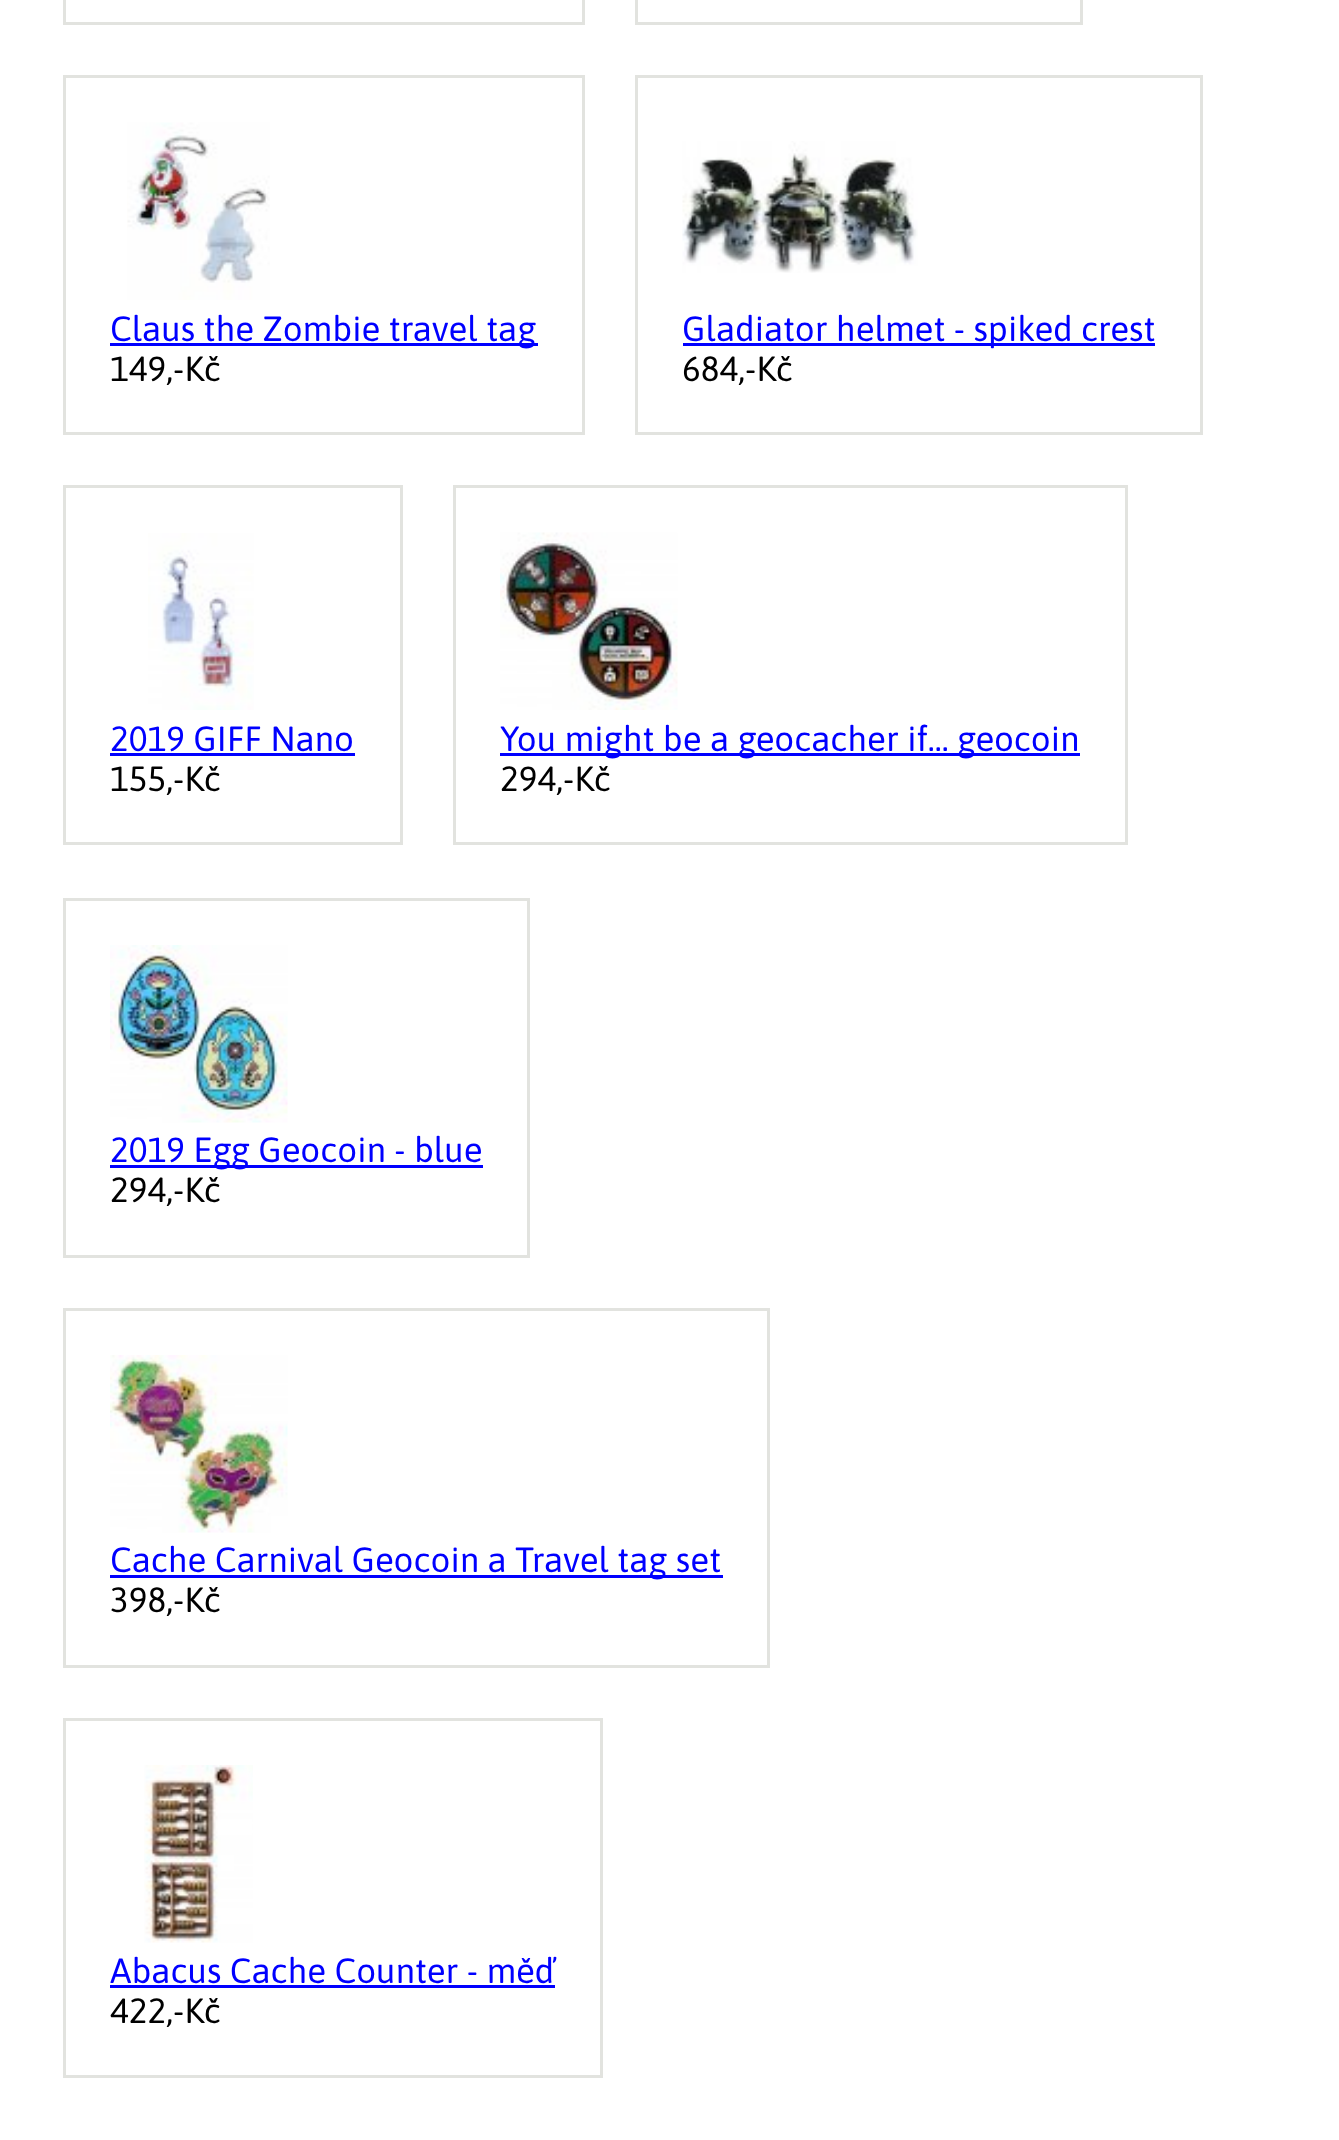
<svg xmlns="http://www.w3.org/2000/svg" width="1339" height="2140">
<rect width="100%" height="100%" fill="#fff"/>
<rect x="64.5" y="-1.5" width="519" height="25" fill="none" stroke="#e2e3df" stroke-width="3"/>
<rect x="636.5" y="-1.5" width="445" height="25" fill="none" stroke="#e2e3df" stroke-width="3"/>
<rect x="64.5" y="76.5" width="519" height="357" fill="none" stroke="#e2e3df" stroke-width="3"/>
<image x="127" y="122" width="143" height="178" href="media/1.png"/>
<rect x="110" y="343" width="428" height="3" fill="#00f"/>
<text x="110" y="341" style="font-family:Asap;font-size:35px;fill:#00f">Claus the Zombie travel tag</text>
<text x="110" y="381" style="font-family:Asap;font-size:35px;fill:#000">149,-Kč</text>
<rect x="636.5" y="76.5" width="565" height="357" fill="none" stroke="#e2e3df" stroke-width="3"/>
<image x="682" y="141" width="236" height="132" href="media/2.png"/>
<rect x="683" y="343" width="472" height="3" fill="#00f"/>
<text x="682" y="341" style="font-family:Asap;font-size:35px;fill:#00f">Gladiator helmet - spiked crest</text>
<text x="682" y="381" style="font-family:Asap;font-size:35px;fill:#000">684,-Kč</text>
<rect x="64.5" y="486.5" width="337" height="357" fill="none" stroke="#e2e3df" stroke-width="3"/>
<image x="148" y="533" width="106" height="177" href="media/3.png"/>
<text x="110" y="751" style="font-family:Asap;font-size:35px;fill:#00f">2019 GIFF Nano</text>
<rect x="110" y="753" width="245" height="3" fill="#00f"/>
<text x="110" y="791" style="font-family:Asap;font-size:35px;fill:#000">155,-Kč</text>
<rect x="454.5" y="486.5" width="672" height="357" fill="none" stroke="#e2e3df" stroke-width="3"/>
<image x="500" y="532" width="178" height="178" href="media/4.png"/>
<rect x="500" y="753" width="580" height="3" fill="#00f"/>
<text x="500" y="751" style="font-family:Asap;font-size:35px;fill:#00f">You might be a geocacher if... geocoin</text>
<text x="500" y="791" style="font-family:Asap;font-size:35px;fill:#000">294,-Kč</text>
<rect x="64.5" y="899.5" width="464" height="357" fill="none" stroke="#e2e3df" stroke-width="3"/>
<image x="110" y="945" width="178" height="178" href="media/5.png"/>
<rect x="110" y="1165" width="373" height="3" fill="#00f"/>
<text x="110" y="1162" style="font-family:Asap;font-size:35px;fill:#00f">2019 Egg Geocoin - blue</text>
<text x="110" y="1202" style="font-family:Asap;font-size:35px;fill:#000">294,-Kč</text>
<rect x="64.5" y="1309.5" width="704" height="357" fill="none" stroke="#e2e3df" stroke-width="3"/>
<image x="110" y="1355" width="178" height="178" href="media/6.png"/>
<rect x="110" y="1575" width="613" height="3" fill="#00f"/>
<text x="110" y="1572" style="font-family:Asap;font-size:35px;fill:#00f">Cache Carnival Geocoin a Travel tag set</text>
<text x="110" y="1612" style="font-family:Asap;font-size:35px;fill:#000">398,-Kč</text>
<rect x="64.5" y="1719.5" width="537" height="357" fill="none" stroke="#e2e3df" stroke-width="3"/>
<image x="144" y="1765" width="109" height="178" href="media/7.png"/>
<text x="110" y="1983" style="font-family:Asap;font-size:35px;fill:#00f">Abacus Cache Counter - měď</text>
<rect x="110" y="1985" width="445" height="3" fill="#00f"/>
<text x="110" y="2023" style="font-family:Asap;font-size:35px;fill:#000">422,-Kč</text>
</svg>
